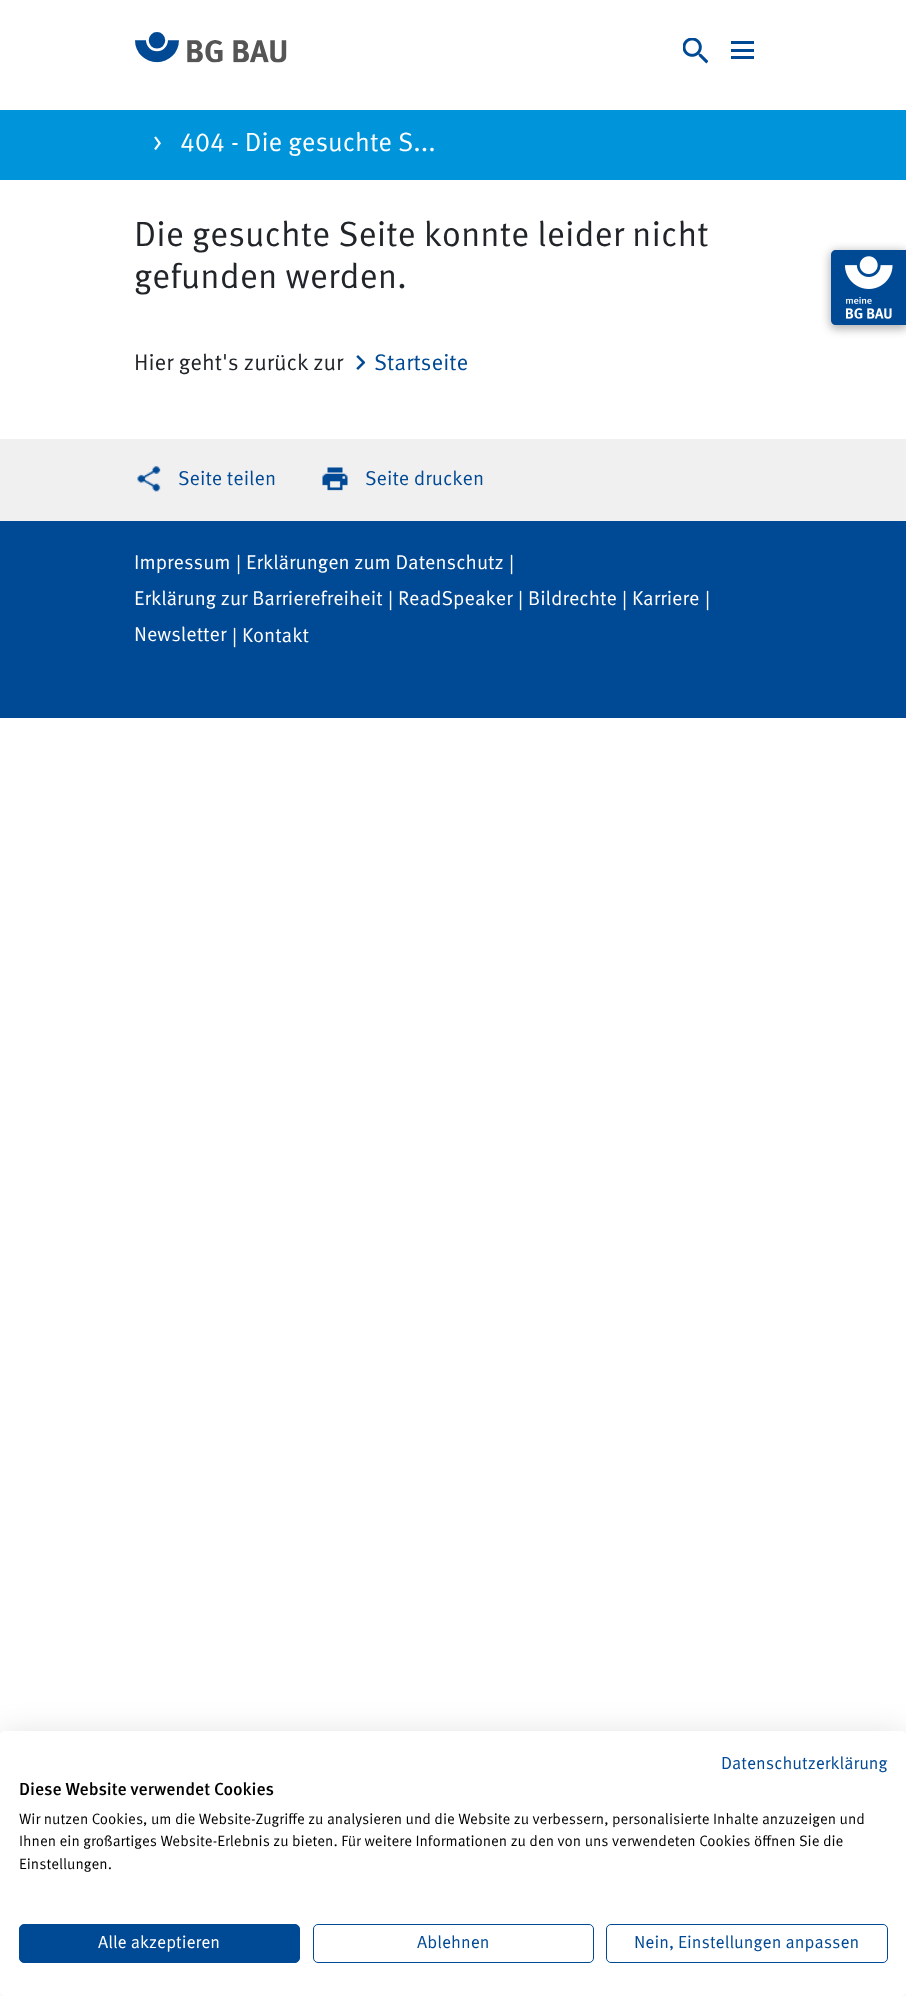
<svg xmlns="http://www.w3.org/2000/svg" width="906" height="1996">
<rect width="100%" height="100%" fill="#fff"/>
<image x="135" y="32" width="152" height="31" href="media/1.png"/>
<rect x="731" y="49" width="23" height="3" fill="#004994"/>
<rect x="731" y="41" width="23" height="3" fill="#004994"/>
<rect x="731" y="56" width="23" height="3" fill="#004994"/>
<image x="683" y="38" width="25" height="26" href="media/2.png"/>
<rect y="110" width="906" height="70" fill="#0095db"/>
<text x="153" y="151" style="font-family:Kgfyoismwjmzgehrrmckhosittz;font-size:26.25px;fill:#fff">&gt;</text>
<text x="180" y="151" style="font-family:Kgfyoismwjmzgehrrmckhosittz;font-size:26.25px;fill:#fff">404 - Die gesuchte S...</text>
<text x="134" y="246" style="font-family:Kgfyoismwjmzgehrrmckhosittz;font-size:35px;fill:#212529">Die gesuchte Seite konnte leider nicht</text>
<text x="134" y="288" style="font-family:Kgfyoismwjmzgehrrmckhosittz;font-size:35px;fill:#212529">gefunden werden.</text>
<text x="134" y="370" style="font-family:Kgfyoismwjmzgehrrmckhosittz;font-size:22.5px;fill:#212529">Hier geht's zurück zur</text>
<image x="356" y="355" width="9" height="15" href="media/3.png"/>
<text x="374" y="370" style="font-family:Kgfyoismwjmzgehrrmckhosittz;font-size:22.5px;fill:#004994">Startseite</text>
<rect x="830" y="251" width="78" height="78" rx="6" fill="#0000004d" filter="blur(5px)"/>
<path d="M836 250h70v75h-70c-3 0-5-2-5-5v-65c0-3 2-5 5-5z" fill="#004994"/>
<image x="844" y="256" width="49" height="63" href="media/4.png"/>
<rect y="439" width="906" height="82" fill="#f0f0f0"/>
<image x="137" y="466" width="24" height="26" href="media/5.png"/>
<text x="178" y="485" style="font-family:Kgfyoismwjmzgehrrmckhosittz;font-size:20px;fill:#004994">Seite teilen</text>
<image x="322" y="467" width="26" height="24" href="media/6.png"/>
<text x="365" y="485" style="font-family:Kgfyoismwjmzgehrrmckhosittz;font-size:20px;fill:#004994">Seite drucken</text>
<rect y="521" width="906" height="197" fill="#004994"/>
<text x="134" y="569" style="font-family:Kgfyoismwjmzgehrrmckhosittz;font-size:20px;fill:#fff">Impressum</text>
<text x="236" y="570" style="font-family:Kgfyoismwjmzgehrrmckhosittz;font-size:20px;fill:#fff">|</text>
<text x="246" y="569" style="font-family:Kgfyoismwjmzgehrrmckhosittz;font-size:20px;fill:#fff">Erklärungen zum Datenschutz</text>
<text x="509" y="570" style="font-family:Kgfyoismwjmzgehrrmckhosittz;font-size:20px;fill:#fff">|</text>
<text x="134" y="605" style="font-family:Kgfyoismwjmzgehrrmckhosittz;font-size:20px;fill:#fff">Erklärung zur Barrierefreiheit</text>
<text x="388" y="606" style="font-family:Kgfyoismwjmzgehrrmckhosittz;font-size:20px;fill:#fff">|</text>
<text x="398" y="605" style="font-family:Kgfyoismwjmzgehrrmckhosittz;font-size:20px;fill:#fff">ReadSpeaker</text>
<text x="518" y="606" style="font-family:Kgfyoismwjmzgehrrmckhosittz;font-size:20px;fill:#fff">|</text>
<text x="528" y="605" style="font-family:Kgfyoismwjmzgehrrmckhosittz;font-size:20px;fill:#fff">Bildrechte</text>
<text x="622" y="606" style="font-family:Kgfyoismwjmzgehrrmckhosittz;font-size:20px;fill:#fff">|</text>
<text x="632" y="605" style="font-family:Kgfyoismwjmzgehrrmckhosittz;font-size:20px;fill:#fff">Karriere</text>
<text x="705" y="606" style="font-family:Kgfyoismwjmzgehrrmckhosittz;font-size:20px;fill:#fff">|</text>
<text x="134" y="641" style="font-family:Kgfyoismwjmzgehrrmckhosittz;font-size:20px;fill:#fff">Newsletter</text>
<text x="232" y="643" style="font-family:Kgfyoismwjmzgehrrmckhosittz;font-size:20px;fill:#fff">|</text>
<text x="242" y="642" style="font-family:Kgfyoismwjmzgehrrmckhosittz;font-size:20px;fill:#fff">Kontakt</text>
<rect y="1731" width="906" height="265" rx="5" fill="#0000001a" filter="blur(15px)"/>
<rect y="1731" width="906" height="265" rx="5" fill="#fff"/>
<text x="721" y="1769" style="font-family:Kgfyoismwjmzgehrrmckhosittz;font-size:17.5px;fill:#004994">Datenschutzerklärung</text>
<text x="19" y="1795" style="font-family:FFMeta;font-size:17.5px;font-weight:500;fill:#000">Diese Website verwendet Cookies</text>
<text x="19" y="1824" style="font-family:Kgfyoismwjmzgehrrmckhosittz;font-size:15px;fill:#000">Wir nutzen Cookies, um die Website-Zugriffe zu analysieren und die Website zu verbessern, personalisierte Inhalte anzuzeigen und</text>
<text x="19" y="1846" style="font-family:Kgfyoismwjmzgehrrmckhosittz;font-size:15px;fill:#000">Ihnen ein großartiges Website-Erlebnis zu bieten. Für weitere Informationen zu den von uns verwendeten Cookies öffnen Sie die</text>
<text x="19" y="1869" style="font-family:Kgfyoismwjmzgehrrmckhosittz;font-size:15px;fill:#000">Einstellungen.</text>
<rect x="19.5" y="1924.5" width="280" height="38" rx="4.5" fill="#004994" stroke="#004994"/>
<text x="98" y="1948" style="font-family:Kgfyoismwjmzgehrrmckhosittz;font-size:17.5px;fill:#fff">Alle akzeptieren</text>
<rect x="313.5" y="1924.5" width="280" height="38" rx="4.5" fill="none" stroke="#004994"/>
<text x="417" y="1948" style="font-family:Kgfyoismwjmzgehrrmckhosittz;font-size:17.5px;fill:#004994">Ablehnen</text>
<rect x="606.5" y="1924.5" width="281" height="38" rx="4.5" fill="none" stroke="#004994"/>
<text x="634" y="1948" style="font-family:Kgfyoismwjmzgehrrmckhosittz;font-size:17.5px;fill:#004994">Nein, Einstellungen anpassen</text>
</svg>
